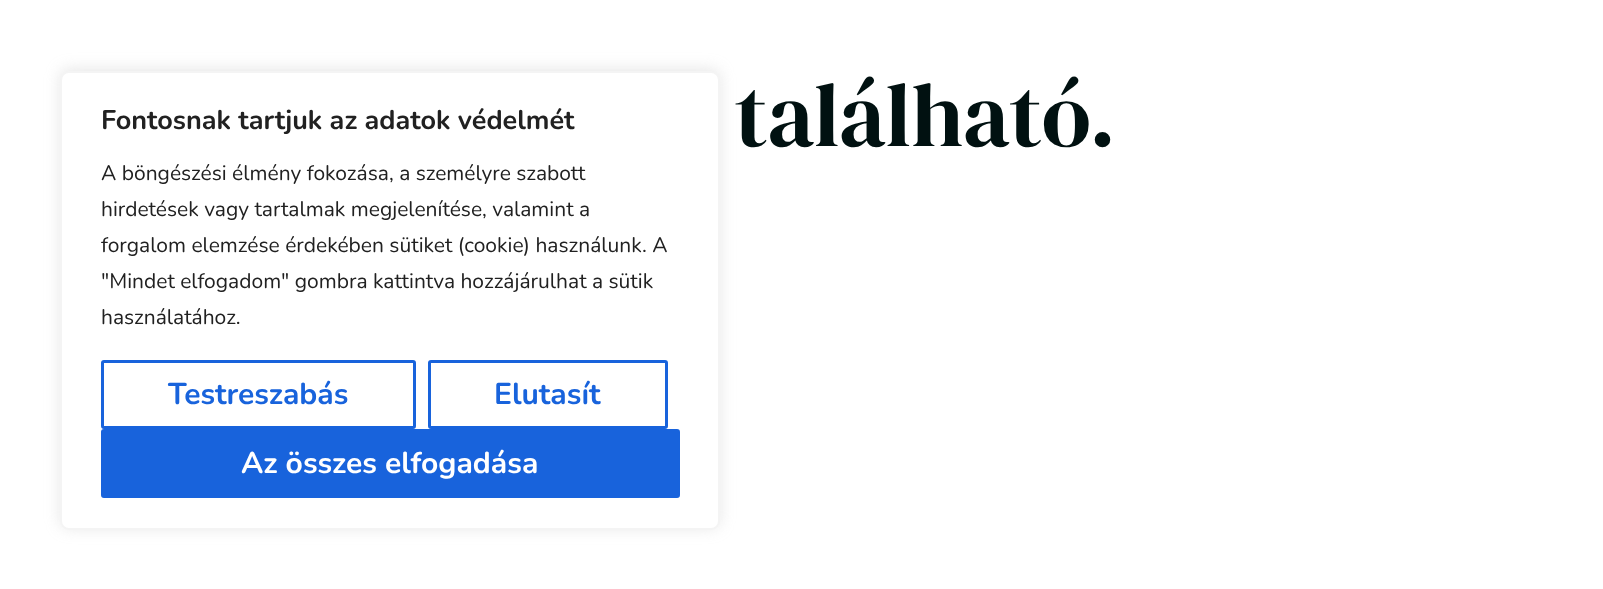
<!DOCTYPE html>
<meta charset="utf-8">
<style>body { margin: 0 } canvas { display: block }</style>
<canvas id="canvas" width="1603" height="589"></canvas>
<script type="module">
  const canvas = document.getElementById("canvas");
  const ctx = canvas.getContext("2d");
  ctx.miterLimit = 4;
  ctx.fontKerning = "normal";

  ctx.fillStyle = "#ffffff";
  ctx.fillRect(0, 0, 1603, 589);
  ctx.fillStyle = "rgba(172, 171, 171, 0.3)";
  ctx.filter = "blur(7.5px)";
  ctx.beginPath();
  ctx.roundRect(60, 69, 660, 459, 9);
  ctx.fill();
  ctx.filter = "none";
  ctx.fillStyle = "#ffffff";
  ctx.beginPath();
  ctx.roundRect(61, 72, 658, 457, 8);
  ctx.fill();
  ctx.strokeStyle = "#f4f4f4";
  ctx.lineWidth = 2;
  ctx.stroke();
  ctx.font = "bold 27px Nunito";
  ctx.fillStyle = "#212121";
  ctx.fillText("Fontosnak tartjuk az adatok védelmét", 101, 129);
  ctx.font = "21px Nunito";
  ctx.fillText("A böngészési élmény fokozása, a személyre szabott", 101, 180);
  ctx.fillText("hirdetések vagy tartalmak megjelenítése, valamint a", 101, 216);
  ctx.fillText("forgalom elemzése érdekében sütiket (cookie) használunk. A", 101, 252);
  ctx.fillText("\"Mindet elfogadom\" gombra kattintva hozzájárulhat a sütik", 101, 288);
  ctx.fillText("használatához.", 101, 324);
  ctx.beginPath();
  ctx.roundRect(102.5, 361.5, 312, 66, 1.5);
  ctx.strokeStyle = "#1863dc";
  ctx.lineWidth = 3;
  ctx.stroke();
  ctx.font = "bold 30px Nunito";
  ctx.fillStyle = "#1863dc";
  ctx.fillText("Testreszabás", 168, 404);
  ctx.beginPath();
  ctx.roundRect(429.5, 361.5, 237, 66, 1.5);
  ctx.stroke();
  ctx.fillText("Elutasít", 494, 404);
  ctx.beginPath();
  ctx.roundRect(102.5, 430.5, 576, 66, 1.5);
  ctx.fill();
  ctx.stroke();
  ctx.fillStyle = "#ffffff";
  ctx.fillText("Az összes elfogadása", 241, 473);
  ctx.font = "90px DM Serif Display";
  ctx.fillStyle = "#011111";
  ctx.fillText("található.", 735, 146);
</script>
